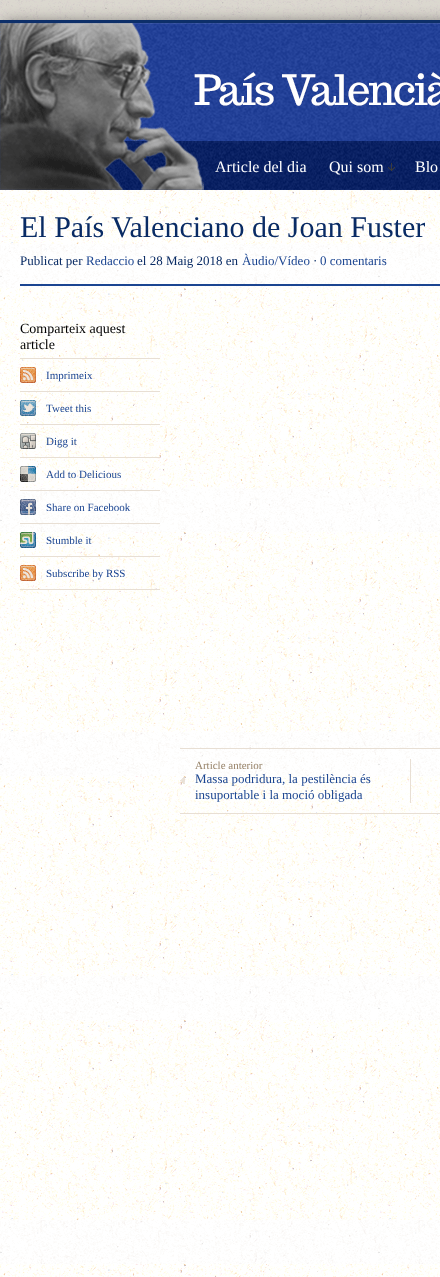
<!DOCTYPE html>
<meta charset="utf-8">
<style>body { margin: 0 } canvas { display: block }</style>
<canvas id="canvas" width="440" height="1277"></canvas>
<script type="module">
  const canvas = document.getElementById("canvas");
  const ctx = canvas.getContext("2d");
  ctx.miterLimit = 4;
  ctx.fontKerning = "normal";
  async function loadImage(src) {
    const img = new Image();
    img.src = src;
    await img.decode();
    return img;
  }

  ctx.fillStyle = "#ffffff";
  ctx.fillRect(0, 0, 440, 1277);
  ctx.drawImage(await loadImage("img1.png"), 0, 0, 440, 20);
  ctx.fillStyle = "rgba(0, 0, 0, 0.6)";
  ctx.filter = "blur(8px)";
  ctx.beginPath();
  ctx.rect(4, 24, 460, 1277);
  ctx.fill();
  ctx.filter = "none";
  ctx.drawImage(await loadImage("img2.png"), 0, 190, 440, 1087);
  ctx.fillStyle = "#0d2f69";
  ctx.fillRect(0, 20, 440, 3);
  ctx.drawImage(await loadImage("img3.png"), 0, 23, 440, 167);
  ctx.font = "16px Liberation Serif";
  ctx.fillStyle = "#ffffff";
  ctx.fillText("Article del dia", 215, 172);
  ctx.drawImage(await loadImage("img4.png"), 388, 163, 7, 8);
  ctx.fillText("Qui som", 329, 172);
  ctx.fillText("Blo", 415, 172);
  ctx.fillStyle = "#1b4591";
  ctx.fillRect(20, 284, 420, 2);
  ctx.font = "30px Liberation Serif";
  ctx.fillStyle = "#092b64";
  ctx.fillText("El País Valenciano de Joan Fuster", 20, 237);
  ctx.font = "13px Liberation Serif";
  ctx.fillText("Publicat per", 20, 265);
  ctx.fillStyle = "#1b4591";
  ctx.fillText("Redaccio", 86, 265);
  ctx.fillStyle = "#092b64";
  ctx.fillText("el 28 Maig 2018 en", 137, 265);
  ctx.fillStyle = "#1b4591";
  ctx.fillText("Àudio/Vídeo", 242, 265);
  ctx.fillStyle = "#092b64";
  ctx.fillText("·", 313, 265);
  ctx.fillStyle = "#1b4591";
  ctx.fillText("0 comentaris", 320, 265);
  ctx.fillStyle = "#e8dfd4";
  ctx.fillRect(20, 358, 140, 1);
  ctx.font = "14px Liberation Serif";
  ctx.fillStyle = "#000000";
  ctx.fillText("Comparteix aquest", 20, 333);
  ctx.fillText("article", 20, 349);
  ctx.fillStyle = "#e8dfd4";
  ctx.fillRect(20, 391, 140, 1);
  ctx.drawImage(await loadImage("img5.png"), 20, 367, 16, 16);
  ctx.font = "11px Liberation Serif";
  ctx.fillStyle = "#1b4591";
  ctx.fillText("Imprimeix", 46, 379);
  ctx.fillStyle = "#e8dfd4";
  ctx.fillRect(20, 424, 140, 1);
  ctx.drawImage(await loadImage("img6.png"), 20, 400, 16, 16);
  ctx.fillStyle = "#1b4591";
  ctx.fillText("Tweet this", 46, 412);
  ctx.fillStyle = "#e8dfd4";
  ctx.fillRect(20, 457, 140, 1);
  ctx.drawImage(await loadImage("img7.png"), 20, 433, 16, 16);
  ctx.fillStyle = "#1b4591";
  ctx.fillText("Digg it", 46, 445);
  ctx.fillStyle = "#e8dfd4";
  ctx.fillRect(20, 490, 140, 1);
  ctx.drawImage(await loadImage("img8.png"), 20, 466, 16, 16);
  ctx.fillStyle = "#1b4591";
  ctx.fillText("Add to Delicious", 46, 478);
  ctx.fillStyle = "#e8dfd4";
  ctx.fillRect(20, 523, 140, 1);
  ctx.drawImage(await loadImage("img9.png"), 20, 499, 16, 16);
  ctx.fillStyle = "#1b4591";
  ctx.fillText("Share on Facebook", 46, 511);
  ctx.fillStyle = "#e8dfd4";
  ctx.fillRect(20, 556, 140, 1);
  ctx.drawImage(await loadImage("img10.png"), 20, 532, 16, 16);
  ctx.fillStyle = "#1b4591";
  ctx.fillText("Stumble it", 46, 544);
  ctx.fillStyle = "#e8dfd4";
  ctx.fillRect(20, 589, 140, 1);
  ctx.drawImage(await loadImage("img11.png"), 20, 565, 16, 16);
  ctx.fillStyle = "#1b4591";
  ctx.fillText("Subscribe by RSS", 46, 577);
  ctx.fillStyle = "#e8dfd4";
  ctx.fillRect(180, 748, 260, 1);
  ctx.fillRect(180, 813, 260, 1);
  ctx.drawImage(await loadImage("img12.png"), 180, 777, 5, 7);
  ctx.fillStyle = "#968268";
  ctx.fillText("Article anterior", 195, 769);
  ctx.font = "13px Liberation Serif";
  ctx.fillStyle = "#1b4591";
  ctx.fillText("Massa podridura, la pestilència és", 195, 783);
  ctx.fillText("insuportable i la moció obligada", 195, 799);
  ctx.fillStyle = "#e8dfd4";
  ctx.fillRect(410, 759, 1, 44);
</script>
